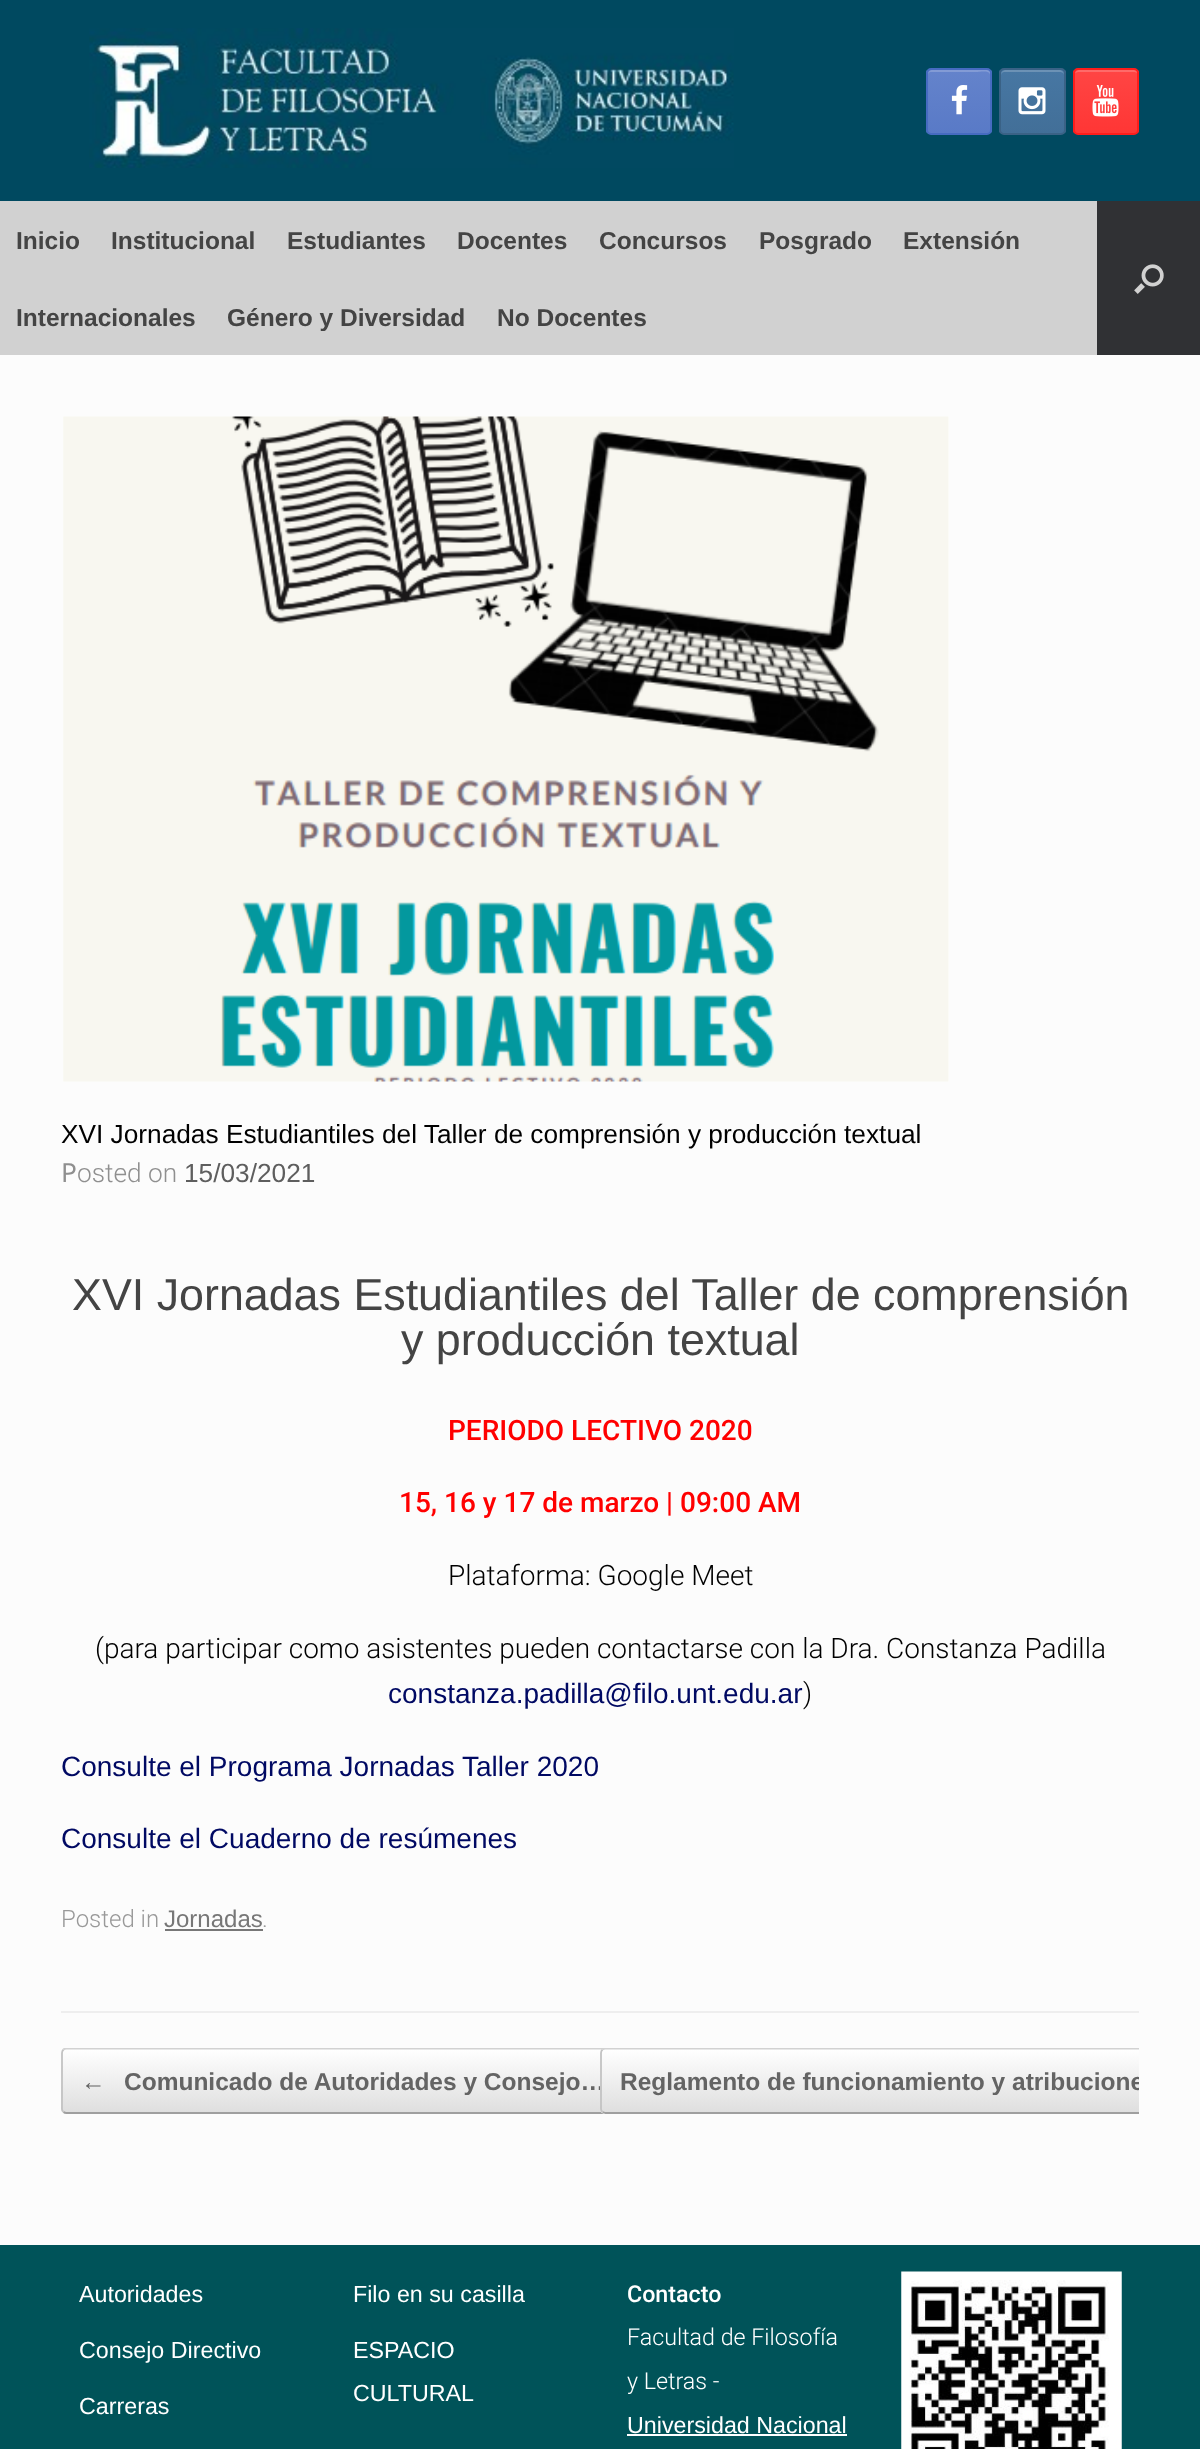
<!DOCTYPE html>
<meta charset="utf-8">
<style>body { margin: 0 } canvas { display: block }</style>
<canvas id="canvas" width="1200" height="2449"></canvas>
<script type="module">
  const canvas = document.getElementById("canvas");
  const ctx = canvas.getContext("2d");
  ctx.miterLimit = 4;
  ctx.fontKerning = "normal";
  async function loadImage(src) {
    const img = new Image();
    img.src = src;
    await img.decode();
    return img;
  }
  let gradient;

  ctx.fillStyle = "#005359";
  ctx.fillRect(0, 0, 1200, 2449);
  ctx.fillStyle = "#004960";
  ctx.fillRect(0, 0, 1200, 201);
  ctx.drawImage(await loadImage("img1.png"), 89, 28, 645, 140);
  ctx.save();
  ctx.beginPath();
  ctx.roundRect(926, 68, 66, 67, 5);
  ctx.clip();
  gradient = ctx.createLinearGradient(928, 133, 928, 70);
  gradient.addColorStop(0, "#597ac7");
  gradient.addColorStop(1, "#6483cb");
  ctx.fillStyle = gradient;
  ctx.fillRect(926, 70, 66, 63);
  ctx.restore();
  ctx.fillStyle = "rgba(255, 255, 255, 0.2)";
  ctx.beginPath();
  ctx.moveTo(931, 72);
  ctx.lineTo(978, 72);
  ctx.bezierCurveTo(979, 72, 990, 70, 990, 75);
  ctx.lineTo(990, 132);
  ctx.bezierCurveTo(991, 131, 991, 130, 991, 129);
  ctx.lineTo(991, 74);
  ctx.bezierCurveTo(991, 72, 989, 70, 987, 70);
  ctx.lineTo(932, 70);
  ctx.bezierCurveTo(930, 70, 928, 72, 928, 74);
  ctx.lineTo(928, 75);
  ctx.bezierCurveTo(928, 73, 929, 72, 931, 72);
  ctx.closePath();
  ctx.fill();
  ctx.beginPath();
  ctx.roundRect(927, 69, 64, 65, 4);
  ctx.strokeStyle = "#466bc1";
  ctx.lineWidth = 2;
  ctx.stroke();
  ctx.drawImage(await loadImage("img2.png"), 951, 85, 17, 30);
  ctx.save();
  ctx.beginPath();
  ctx.roundRect(999, 68, 67, 67, 5);
  ctx.clip();
  gradient = ctx.createLinearGradient(1001, 133, 1001, 70);
  gradient.addColorStop(0, "#426f98");
  gradient.addColorStop(1, "#4777a3");
  ctx.fillStyle = gradient;
  ctx.fillRect(999, 70, 67, 63);
  ctx.restore();
  ctx.fillStyle = "#6c92b5";
  ctx.beginPath();
  ctx.moveTo(1004, 72);
  ctx.lineTo(1060, 72);
  ctx.bezierCurveTo(1062, 72, 1064, 73, 1064, 75);
  ctx.bezierCurveTo(1064, 68, 1056, 70, 1051, 70);
  ctx.lineTo(1014, 70);
  ctx.bezierCurveTo(1009, 70, 1001, 68, 1001, 75);
  ctx.bezierCurveTo(1001, 73, 1003, 72, 1004, 72);
  ctx.closePath();
  ctx.fill();
  ctx.beginPath();
  ctx.roundRect(1000, 69, 65, 65, 4);
  ctx.strokeStyle = "#3a6286";
  ctx.stroke();
  ctx.drawImage(await loadImage("img3.png"), 1018, 87, 28, 28);
  ctx.save();
  ctx.beginPath();
  ctx.roundRect(1073, 68, 66, 67, 5);
  ctx.clip();
  gradient = ctx.createLinearGradient(1075, 133, 1075, 70);
  gradient.addColorStop(0, "#ff3635");
  gradient.addColorStop(1, "#ff4544");
  ctx.fillStyle = gradient;
  ctx.fillRect(1073, 70, 66, 63);
  ctx.restore();
  ctx.fillStyle = "#ff6a69";
  ctx.beginPath();
  ctx.moveTo(1078, 72);
  ctx.lineTo(1134, 72);
  ctx.bezierCurveTo(1136, 72, 1138, 73, 1138, 75);
  ctx.lineTo(1138, 74);
  ctx.bezierCurveTo(1138, 72, 1136, 70, 1134, 70);
  ctx.lineTo(1079, 70);
  ctx.bezierCurveTo(1077, 70, 1076, 71, 1075, 73);
  ctx.closePath();
  ctx.fill();
  ctx.beginPath();
  ctx.roundRect(1074, 69, 64, 65, 4);
  ctx.strokeStyle = "#ff1d1b";
  ctx.stroke();
  ctx.drawImage(await loadImage("img4.png"), 1092, 85, 27, 32);
  ctx.fillStyle = "#d1d1d1";
  ctx.fillRect(0, 201, 1097, 154);
  ctx.font = "bold 24.5px Liberation Sans";
  ctx.fillStyle = "#444444";
  ctx.fillText("Inicio", 16, 249);
  ctx.fillText("Institucional", 111, 249);
  ctx.fillText("Estudiantes", 287, 249);
  ctx.fillText("Docentes", 457, 249);
  ctx.fillText("Concursos", 599, 249);
  ctx.fillText("Posgrado", 759, 249);
  ctx.fillText("Extensión", 903, 249);
  ctx.fillText("Internacionales", 16, 326);
  ctx.fillText("Género y Diversidad", 227, 326);
  ctx.fillText("No Docentes", 497, 326);
  ctx.fillStyle = "#303134";
  ctx.fillRect(1097, 201, 103, 154);
  ctx.drawImage(await loadImage("img5.png"), 1134, 264, 30, 30);
  ctx.fillStyle = "#fcfcfc";
  ctx.fillRect(0, 355, 1200, 1890);
  ctx.fillStyle = "#eeeeee";
  ctx.fillRect(61, 2011, 1078, 2);
  ctx.drawImage(await loadImage("img6.png"), 63, 416, 886, 666);
  ctx.font = "26.25px Liberation Sans";
  ctx.fillStyle = "#000000";
  ctx.fillText("XVI Jornadas Estudiantiles del Taller de comprensión y producción textual", 61, 1143);
  ctx.font = "26.25px Noto Sans";
  ctx.fillStyle = "#8f8f8f";
  ctx.fillText("P", 61, 1182);
  ctx.font = "300 26.25px Roboto";
  ctx.fillText("osted on", 77, 1182);
  ctx.font = "26.25px Liberation Sans";
  ctx.fillStyle = "#5e5e5e";
  ctx.fillText("15/03/2021", 184, 1182);
  ctx.font = "44.8px Liberation Sans";
  ctx.fillStyle = "#444444";
  ctx.fillText("XVI Jornadas Estudiantiles del Taller de comprensión", 72, 1310);
  ctx.fillText("y producción textual", 401, 1355);
  ctx.font = "500 28px Roboto";
  ctx.fillStyle = "#ff0000";
  ctx.fillText("PERIODO LECTIVO 2020", 448, 1440);
  ctx.fillText("15, 16 y 17 de marzo | 09:00 AM", 399, 1512);
  ctx.font = "300 28px Roboto";
  ctx.fillStyle = "#000000";
  ctx.fillText("Plataforma: Google Meet", 448, 1585);
  ctx.fillText("(para participar como asistentes pueden contactarse con la Dra. Constanza Padilla", 95, 1658);
  ctx.font = "28px Liberation Sans";
  ctx.fillStyle = "#000963";
  ctx.fillText("constanza.padilla@filo.unt.edu.ar", 388, 1703);
  ctx.font = "300 28px Roboto";
  ctx.fillStyle = "#000000";
  ctx.fillText(")", 803, 1703);
  ctx.font = "28px Liberation Sans";
  ctx.fillStyle = "#000963";
  ctx.fillText("Consulte el Programa Jornadas Taller 2020", 61, 1776);
  ctx.fillText("Consulte el Cuaderno de resúmenes", 61, 1848);
  ctx.font = "300 24px Roboto";
  ctx.fillStyle = "#999999";
  ctx.fillText("Posted in", 61, 1927);
  ctx.font = "24px Liberation Sans";
  ctx.fillStyle = "#777777";
  ctx.fillText("Jornadas", 164, 1927);
  ctx.fillRect(165, 1929, 98, 2);
  ctx.font = "300 24px Roboto";
  ctx.fillStyle = "#999999";
  ctx.fillText(".", 262, 1927);
  ctx.save();
  ctx.beginPath();
  ctx.roundRect(61, 2048, 564, 66, 5);
  ctx.clip();
  gradient = ctx.createLinearGradient(63, 2112, 63, 2049);
  gradient.addColorStop(0, "#dfdfdf");
  gradient.addColorStop(1, "#ffffff");
  ctx.fillStyle = gradient;
  ctx.fillRect(61, 2049, 541, 63);
  gradient = ctx.createLinearGradient(63, 2175, 63, 2112);
  gradient.addColorStop(0, "#dfdfdf");
  gradient.addColorStop(1, "#ffffff");
  ctx.fillStyle = gradient;
  ctx.fillRect(61, 2112, 544, 2);
  ctx.restore();
  ctx.save();
  ctx.beginPath();
  ctx.rect(61, 2048, 1078, 66);
  ctx.clip();
  ctx.beginPath();
  ctx.moveTo(63.5, 2049.5);
  ctx.bezierCurveTo(64, 2049, 65.5, 2048.5, 66.5, 2048.5);
  ctx.lineTo(619.5, 2048.5);
  ctx.bezierCurveTo(620.5, 2048.5, 622, 2049, 622.5, 2049.5);
  ctx.strokeStyle = "#d2d2d2";
  ctx.lineWidth = 1.8;
  ctx.stroke();
  ctx.restore();
  ctx.beginPath();
  ctx.moveTo(622.5, 2112);
  ctx.bezierCurveTo(622, 2112.5, 620.5, 2113, 619.5, 2113);
  ctx.lineTo(66.5, 2113);
  ctx.bezierCurveTo(65.5, 2113, 64, 2112.5, 63.5, 2112);
  ctx.strokeStyle = "#9f9f9f";
  ctx.lineWidth = 1.8;
  ctx.stroke();
  ctx.beginPath();
  ctx.moveTo(63.5, 2112);
  ctx.bezierCurveTo(62.5, 2111, 62, 2110, 62, 2109);
  ctx.lineTo(62, 2053);
  ctx.bezierCurveTo(62, 2051.5, 62.5, 2050.5, 63.5, 2049.5);
  ctx.strokeStyle = "#c3c3c3";
  ctx.stroke();
  ctx.font = "bold 24.5px Liberation Sans";
  ctx.fillStyle = "#646464";
  ctx.fillText("←", 81, 2090);
  ctx.fillText("Comunicado de Autoridades y Consejo…", 124, 2090);
  ctx.save();
  ctx.beginPath();
  ctx.roundRect(600, 2048, 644, 66, 5);
  ctx.clip();
  gradient = ctx.createLinearGradient(602, 2112, 602, 2049);
  gradient.addColorStop(0, "#dfdfdf");
  gradient.addColorStop(1, "#ffffff");
  ctx.fillStyle = gradient;
  ctx.fillRect(600, 2049, 539, 63);
  gradient = ctx.createLinearGradient(602, 2175, 602, 2112);
  gradient.addColorStop(0, "#dfdfdf");
  gradient.addColorStop(1, "#ffffff");
  ctx.fillStyle = gradient;
  ctx.fillRect(600, 2112, 539, 2);
  ctx.restore();
  ctx.save();
  ctx.beginPath();
  ctx.rect(61, 2048, 1078, 66);
  ctx.clip();
  ctx.beginPath();
  ctx.moveTo(602.5, 2049.5);
  ctx.lineTo(605.5, 2048.5);
  ctx.lineTo(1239, 2048.5);
  ctx.lineTo(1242, 2049.5);
  ctx.strokeStyle = "#d2d2d2";
  ctx.stroke();
  ctx.beginPath();
  ctx.moveTo(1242, 2112);
  ctx.lineTo(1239, 2113);
  ctx.lineTo(605.5, 2113);
  ctx.lineTo(602.5, 2112);
  ctx.strokeStyle = "#9f9f9f";
  ctx.stroke();
  ctx.restore();
  ctx.beginPath();
  ctx.moveTo(602.5, 2112);
  ctx.bezierCurveTo(601.5, 2111, 601, 2110, 601, 2109);
  ctx.lineTo(601, 2053);
  ctx.bezierCurveTo(601, 2051.5, 601.5, 2050.5, 602.5, 2049.5);
  ctx.stroke();
  ctx.save();
  ctx.beginPath();
  ctx.rect(61, 2048, 1078, 66);
  ctx.clip();
  ctx.fillText("Reglamento de funcionamiento y atribucione", 620, 2090);
  ctx.restore();
  ctx.font = "23.25px Liberation Sans";
  ctx.fillStyle = "#ffffff";
  ctx.fillText("Autoridades", 79, 2302);
  ctx.fillText("Consejo Directivo", 79, 2358);
  ctx.fillText("Carreras", 79, 2414);
  ctx.fillText("Filo en su casilla", 353, 2302);
  ctx.fillText("ESPACIO", 353, 2358);
  ctx.fillText("CULTURAL", 353, 2401);
  ctx.font = "500 23.25px Roboto";
  ctx.fillText("Contacto", 627, 2302);
  ctx.font = "300 23.25px Roboto";
  ctx.fillText("Facultad de Filosofía", 627, 2345);
  ctx.fillText("y Letras -", 627, 2389);
  ctx.font = "23.25px Liberation Sans";
  ctx.fillText("Universidad Nacional", 627, 2433);
  ctx.fillRect(627, 2434, 220, 2);
  ctx.drawImage(await loadImage("img7.png"), 901, 2271, 221, 178);
</script>
